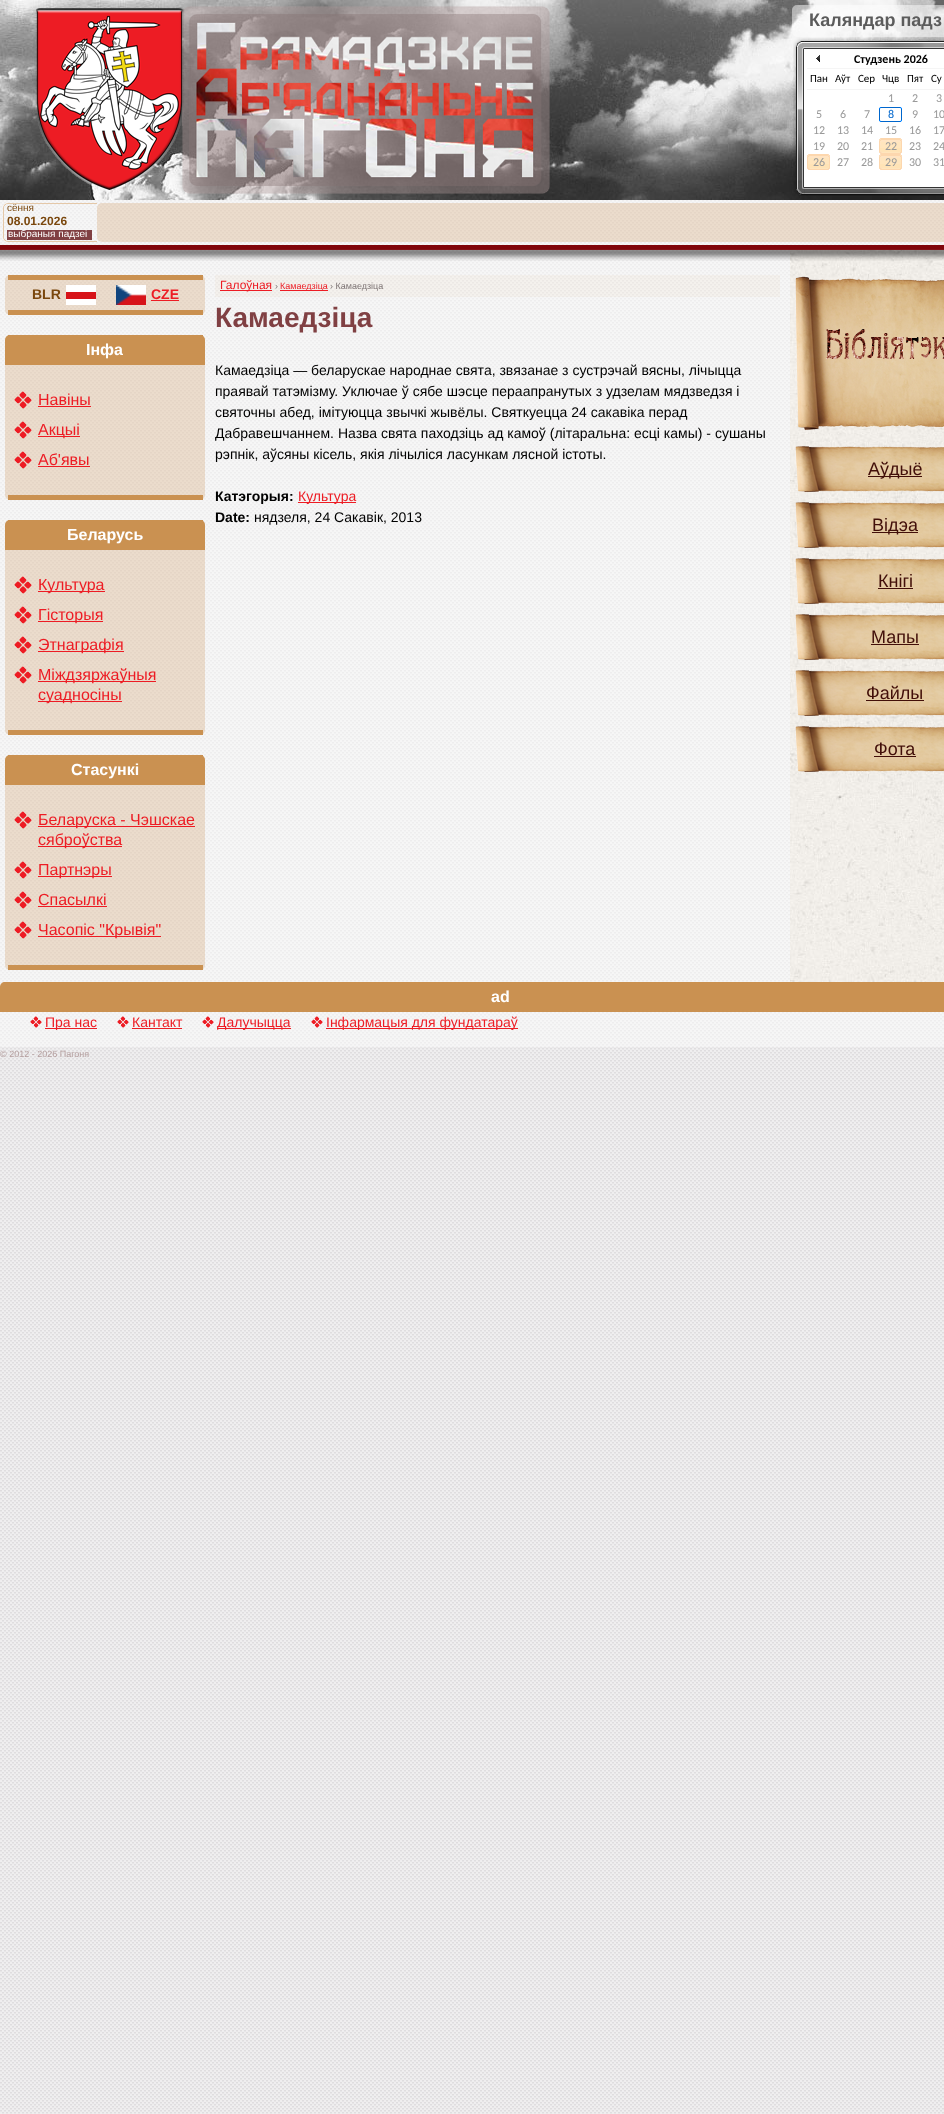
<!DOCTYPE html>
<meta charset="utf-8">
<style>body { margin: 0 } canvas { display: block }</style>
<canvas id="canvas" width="944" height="2114"></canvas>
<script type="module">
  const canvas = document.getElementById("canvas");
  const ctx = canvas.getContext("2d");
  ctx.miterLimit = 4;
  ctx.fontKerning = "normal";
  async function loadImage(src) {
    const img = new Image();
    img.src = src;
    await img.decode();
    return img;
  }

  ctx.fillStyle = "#ffffff";
  ctx.fillRect(0, 0, 944, 2114);
  ctx.drawImage(await loadImage("img1.png"), 0, 200, 944, 1914);
  ctx.fillStyle = "rgba(253, 253, 253, 0.5)";
  ctx.fillRect(0, 200, 944, 847);
  ctx.drawImage(await loadImage("img2.png"), 0, 0, 944, 200);
  ctx.drawImage(await loadImage("img3.png"), 35, 6, 515, 188);
  ctx.drawImage(await loadImage("img4.png"), 792, 5, 152, 32);
  ctx.font = "bold 18px Liberation Sans";
  ctx.fillStyle = "#5c5c5c";
  ctx.fillText("Каляндар падз", 809, 26);
  ctx.drawImage(await loadImage("img5.png"), 793, 38, 151, 158);
  ctx.drawImage(await loadImage("img6.png"), 816, 55, 4, 7);
  ctx.font = "bold 12px Carlito";
  ctx.fillStyle = "#000000";
  ctx.fillText("Студзень 2026", 854, 63);
  ctx.fillStyle = "#f5f5f5";
  ctx.fillRect(807, 68, 137, 1);
  ctx.fillRect(807, 89, 137, 1);
  ctx.font = "11px Carlito";
  ctx.fillStyle = "#000000";
  ctx.fillText("Пан", 810, 82);
  ctx.fillText("Аўт", 835, 82);
  ctx.fillText("Сер", 858, 82);
  ctx.fillText("Чцв", 882, 82);
  ctx.fillText("Пят", 907, 82);
  ctx.fillText("Су", 931, 82);
  ctx.font = "12px Carlito";
  ctx.fillStyle = "#999999";
  ctx.fillText("1", 888, 102);
  ctx.fillText("2", 912, 102);
  ctx.fillText("3", 936, 102);
  ctx.fillText("5", 816, 118);
  ctx.fillText("6", 840, 118);
  ctx.fillText("7", 864, 118);
  ctx.drawImage(await loadImage("img7.png"), 879, 107, 23, 15);
  ctx.fillStyle = "#0066cc";
  ctx.fillText("8", 888, 118);
  ctx.fillStyle = "#999999";
  ctx.fillText("9", 912, 118);
  ctx.fillText("10", 933, 118);
  ctx.fillText("12", 813, 134);
  ctx.fillText("13", 837, 134);
  ctx.fillText("14", 861, 134);
  ctx.fillText("15", 885, 134);
  ctx.fillText("16", 909, 134);
  ctx.fillText("17", 933, 134);
  ctx.fillText("19", 813, 150);
  ctx.fillText("20", 837, 150);
  ctx.fillText("21", 861, 150);
  ctx.drawImage(await loadImage("img8.png"), 879, 138, 23, 2);
  ctx.drawImage(await loadImage("img9.png"), 879, 139, 23, 15);
  ctx.fillText("22", 885, 150);
  ctx.fillText("23", 909, 150);
  ctx.fillText("24", 933, 150);
  ctx.drawImage(await loadImage("img8.png"), 807, 154, 23, 2);
  ctx.drawImage(await loadImage("img9.png"), 807, 155, 23, 15);
  ctx.fillText("26", 813, 166);
  ctx.fillText("27", 837, 166);
  ctx.fillText("28", 861, 166);
  ctx.drawImage(await loadImage("img8.png"), 879, 154, 23, 2);
  ctx.drawImage(await loadImage("img9.png"), 879, 155, 23, 15);
  ctx.fillText("29", 885, 166);
  ctx.fillText("30", 909, 166);
  ctx.fillText("31", 933, 166);
  ctx.drawImage(await loadImage("img13.png"), 790, 250, 154, 732);
  ctx.drawImage(await loadImage("img10.png"), 0, 245, 944, 16);
  ctx.drawImage(await loadImage("img11.png"), 3, 203, 94, 39);
  ctx.font = "10px Liberation Sans";
  ctx.fillStyle = "#7a470d";
  ctx.fillText("cёння", 7, 211);
  ctx.font = "bold 12px Liberation Sans";
  ctx.fillText("08.01.2026", 7, 225);
  ctx.fillStyle = "#804043";
  ctx.fillRect(7, 230, 85, 10);
  ctx.font = "10px Liberation Sans";
  ctx.fillStyle = "#ffffff";
  ctx.fillText("выбраныя падзеі", 8, 237);
  ctx.drawImage(await loadImage("img12.png"), 97, 203, 847, 39);
  ctx.drawImage(await loadImage("img14.png"), 5, 275, 200, 40);
  ctx.fillStyle = "#ca9151";
  ctx.fillRect(8, 275, 195, 5);
  ctx.fillRect(8, 310, 195, 5);
  ctx.font = "bold 14px Liberation Sans";
  ctx.fillStyle = "#7a470d";
  ctx.fillText("BLR", 32, 299);
  ctx.drawImage(await loadImage("img15.png"), 66, 285, 30, 20);
  ctx.drawImage(await loadImage("img16.png"), 116, 285, 30, 20);
  ctx.fillStyle = "#ed1c24";
  ctx.fillText("CZE", 151, 299);
  ctx.fillRect(151, 300, 28, 1);
  ctx.drawImage(await loadImage("img17.png"), 5, 335, 200, 165);
  ctx.fillStyle = "#ca9151";
  ctx.fillRect(8, 335, 195, 1);
  ctx.fillRect(8, 495, 195, 5);
  ctx.beginPath();
  ctx.roundRect(5, 335, 200, 30, [5, 5, 0, 0]);
  ctx.fill();
  ctx.font = "bold 16px Liberation Sans";
  ctx.fillStyle = "#ffffff";
  ctx.fillText("Інфа", 86, 355);
  ctx.drawImage(await loadImage("img18.png"), 14, 391, 18, 18);
  ctx.font = "16px Liberation Sans";
  ctx.fillStyle = "#ed1c24";
  ctx.fillText("Навіны", 38, 405);
  ctx.fillRect(38, 406, 53, 1);
  ctx.drawImage(await loadImage("img19.png"), 14, 421, 18, 18);
  ctx.fillRect(38, 436, 42, 1);
  ctx.fillText("Акцыі", 38, 435);
  ctx.drawImage(await loadImage("img20.png"), 14, 451, 18, 18);
  ctx.fillText("Аб'явы", 38, 465);
  ctx.fillRect(38, 466, 52, 1);
  ctx.drawImage(await loadImage("img21.png"), 5, 520, 200, 215);
  ctx.fillStyle = "#ca9151";
  ctx.fillRect(8, 520, 195, 1);
  ctx.fillRect(8, 730, 195, 5);
  ctx.beginPath();
  ctx.roundRect(5, 520, 200, 30, [5, 5, 0, 0]);
  ctx.fill();
  ctx.font = "bold 16px Liberation Sans";
  ctx.fillStyle = "#ffffff";
  ctx.fillText("Беларусь", 67, 540);
  ctx.drawImage(await loadImage("img22.png"), 14, 576, 18, 18);
  ctx.fillStyle = "#ed1c24";
  ctx.fillRect(38, 591, 67, 1);
  ctx.font = "16px Liberation Sans";
  ctx.fillText("Культура", 38, 590);
  ctx.drawImage(await loadImage("img23.png"), 14, 606, 18, 18);
  ctx.fillRect(38, 621, 65, 1);
  ctx.fillText("Гісторыя", 38, 620);
  ctx.drawImage(await loadImage("img24.png"), 14, 636, 18, 18);
  ctx.fillRect(38, 651, 86, 1);
  ctx.fillText("Этнаграфія", 38, 650);
  ctx.drawImage(await loadImage("img25.png"), 14, 666, 18, 18);
  ctx.fillRect(38, 681, 118, 1);
  ctx.fillText("Міждзяржаўныя", 38, 680);
  ctx.fillRect(38, 701, 84, 1);
  ctx.fillText("суадносіны", 38, 700);
  ctx.drawImage(await loadImage("img26.png"), 5, 755, 200, 215);
  ctx.fillStyle = "#ca9151";
  ctx.fillRect(8, 755, 195, 1);
  ctx.fillRect(8, 965, 195, 5);
  ctx.beginPath();
  ctx.roundRect(5, 755, 200, 30, [5, 5, 0, 0]);
  ctx.fill();
  ctx.font = "bold 16px Liberation Sans";
  ctx.fillStyle = "#ffffff";
  ctx.fillText("Стасункі", 71, 775);
  ctx.drawImage(await loadImage("img20.png"), 14, 811, 18, 18);
  ctx.fillStyle = "#ed1c24";
  ctx.fillRect(38, 826, 157, 1);
  ctx.font = "16px Liberation Sans";
  ctx.fillText("Беларуска - Чэшскае", 38, 825);
  ctx.fillRect(38, 846, 84, 1);
  ctx.fillText("сяброўства", 38, 845);
  ctx.drawImage(await loadImage("img19.png"), 14, 861, 18, 18);
  ctx.fillRect(38, 876, 74, 1);
  ctx.fillText("Партнэры", 38, 875);
  ctx.drawImage(await loadImage("img20.png"), 14, 891, 18, 18);
  ctx.fillText("Спасылкі", 38, 905);
  ctx.fillRect(38, 906, 69, 1);
  ctx.drawImage(await loadImage("img27.png"), 14, 921, 18, 18);
  ctx.fillRect(38, 936, 123, 1);
  ctx.fillText("Часопіс \"Крывія\"", 38, 935);
  ctx.fillStyle = "rgba(226, 196, 157, 0.1)";
  ctx.fillRect(215, 275, 565, 22);
  ctx.fillStyle = "#ed1c24";
  ctx.fillRect(220, 290, 52, 1);
  ctx.font = "12px Liberation Sans";
  ctx.fillText("Галоўная", 220, 289);
  ctx.font = "9px Liberation Sans";
  ctx.fillStyle = "#7e7575";
  ctx.fillText("›", 275, 289);
  ctx.fillStyle = "#ed1c24";
  ctx.fillRect(280, 290, 48, 1);
  ctx.fillText("Камаедзіца", 280, 289);
  ctx.fillStyle = "#7e7575";
  ctx.fillText("› Камаедзіца", 330, 289);
  ctx.font = "bold 28px Liberation Sans";
  ctx.fillStyle = "#804043";
  ctx.fillText("Камаедзіца", 215, 327);
  ctx.font = "14px Liberation Sans";
  ctx.fillStyle = "#000000";
  ctx.fillText("Камаедзіца — беларускае народнае свята, звязанае з сустрэчай вясны, лічыцца", 215, 375);
  ctx.fillText("праявай татэмізму. Уключае ў сябе шэсце пераапранутых з удзелам мядзведзя і", 215, 396);
  ctx.fillText("святочны абед, імітуюцца звычкі жывёлы. Святкуецца 24 сакавіка перад", 215, 417);
  ctx.fillText("Дабравешчаннем. Назва свята паходзіць ад камоў (літаральна: есці камы) - сушаны", 215, 438);
  ctx.fillText("рэпнік, аўсяны кісель, якія лічыліся ласункам лясной істоты.", 215, 459);
  ctx.font = "bold 14px Liberation Sans";
  ctx.fillText("Катэгорыя:", 215, 501);
  ctx.fillStyle = "#ed1c24";
  ctx.fillRect(298, 502, 58, 1);
  ctx.font = "14px Liberation Sans";
  ctx.fillText("Культура", 298, 501);
  ctx.font = "bold 14px Liberation Sans";
  ctx.fillStyle = "#000000";
  ctx.fillText("Date:", 215, 522);
  ctx.font = "14px Liberation Sans";
  ctx.fillText("нядзеля, 24 Сакавік, 2013", 254, 522);
  ctx.drawImage(await loadImage("img28.png"), 795, 276, 149, 155);
  ctx.drawImage(await loadImage("img29.png"), 795, 446, 149, 46);
  ctx.fillStyle = "#420f09";
  ctx.fillRect(868, 476, 54, 1);
  ctx.font = "18px Liberation Sans";
  ctx.fillText("Аўдыё", 868, 475);
  ctx.drawImage(await loadImage("img30.png"), 795, 502, 149, 46);
  ctx.fillRect(872, 532, 46, 1);
  ctx.fillText("Відэа", 872, 531);
  ctx.drawImage(await loadImage("img31.png"), 795, 558, 149, 46);
  ctx.fillText("Кнігі", 878, 587);
  ctx.fillRect(878, 588, 35, 1);
  ctx.drawImage(await loadImage("img32.png"), 795, 614, 149, 46);
  ctx.fillText("Мапы", 871, 643);
  ctx.fillRect(871, 644, 48, 1);
  ctx.drawImage(await loadImage("img33.png"), 795, 670, 149, 46);
  ctx.fillText("Файлы", 866, 699);
  ctx.fillRect(866, 700, 58, 1);
  ctx.drawImage(await loadImage("img34.png"), 795, 726, 149, 46);
  ctx.fillText("Фота", 874, 755);
  ctx.fillRect(874, 756, 42, 1);
  ctx.fillStyle = "#ca9151";
  ctx.beginPath();
  ctx.moveTo(5, 982);
  ctx.lineTo(944, 982);
  ctx.bezierCurveTo(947, 982, 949, 984, 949, 987);
  ctx.lineTo(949, 1012);
  ctx.lineTo(0, 1012);
  ctx.lineTo(0, 987);
  ctx.bezierCurveTo(0, 984, 2, 982, 5, 982);
  ctx.closePath();
  ctx.fill();
  ctx.font = "bold 16px Liberation Sans";
  ctx.fillStyle = "#ffffff";
  ctx.fillText("ad", 491, 1002);
  ctx.drawImage(await loadImage("img35.png"), 30, 1016, 12, 12);
  ctx.fillStyle = "#ed1c24";
  ctx.fillRect(45, 1028, 52, 1);
  ctx.font = "14px Liberation Sans";
  ctx.fillText("Пра нас", 45, 1027);
  ctx.drawImage(await loadImage("img36.png"), 117, 1016, 12, 12);
  ctx.fillText("Кантакт", 132, 1027);
  ctx.fillRect(132, 1028, 50, 1);
  ctx.drawImage(await loadImage("img37.png"), 202, 1016, 12, 12);
  ctx.fillRect(217, 1028, 74, 1);
  ctx.fillText("Далучыцца", 217, 1027);
  ctx.drawImage(await loadImage("img38.png"), 311, 1016, 12, 12);
  ctx.fillRect(326, 1028, 192, 1);
  ctx.fillText("Інфармацыя для фундатараў", 326, 1027);
  ctx.font = "9px Liberation Sans";
  ctx.fillStyle = "#b39d9d";
  ctx.fillText("© 2012 - 2026 Пагоня", 0, 1057);
</script>
